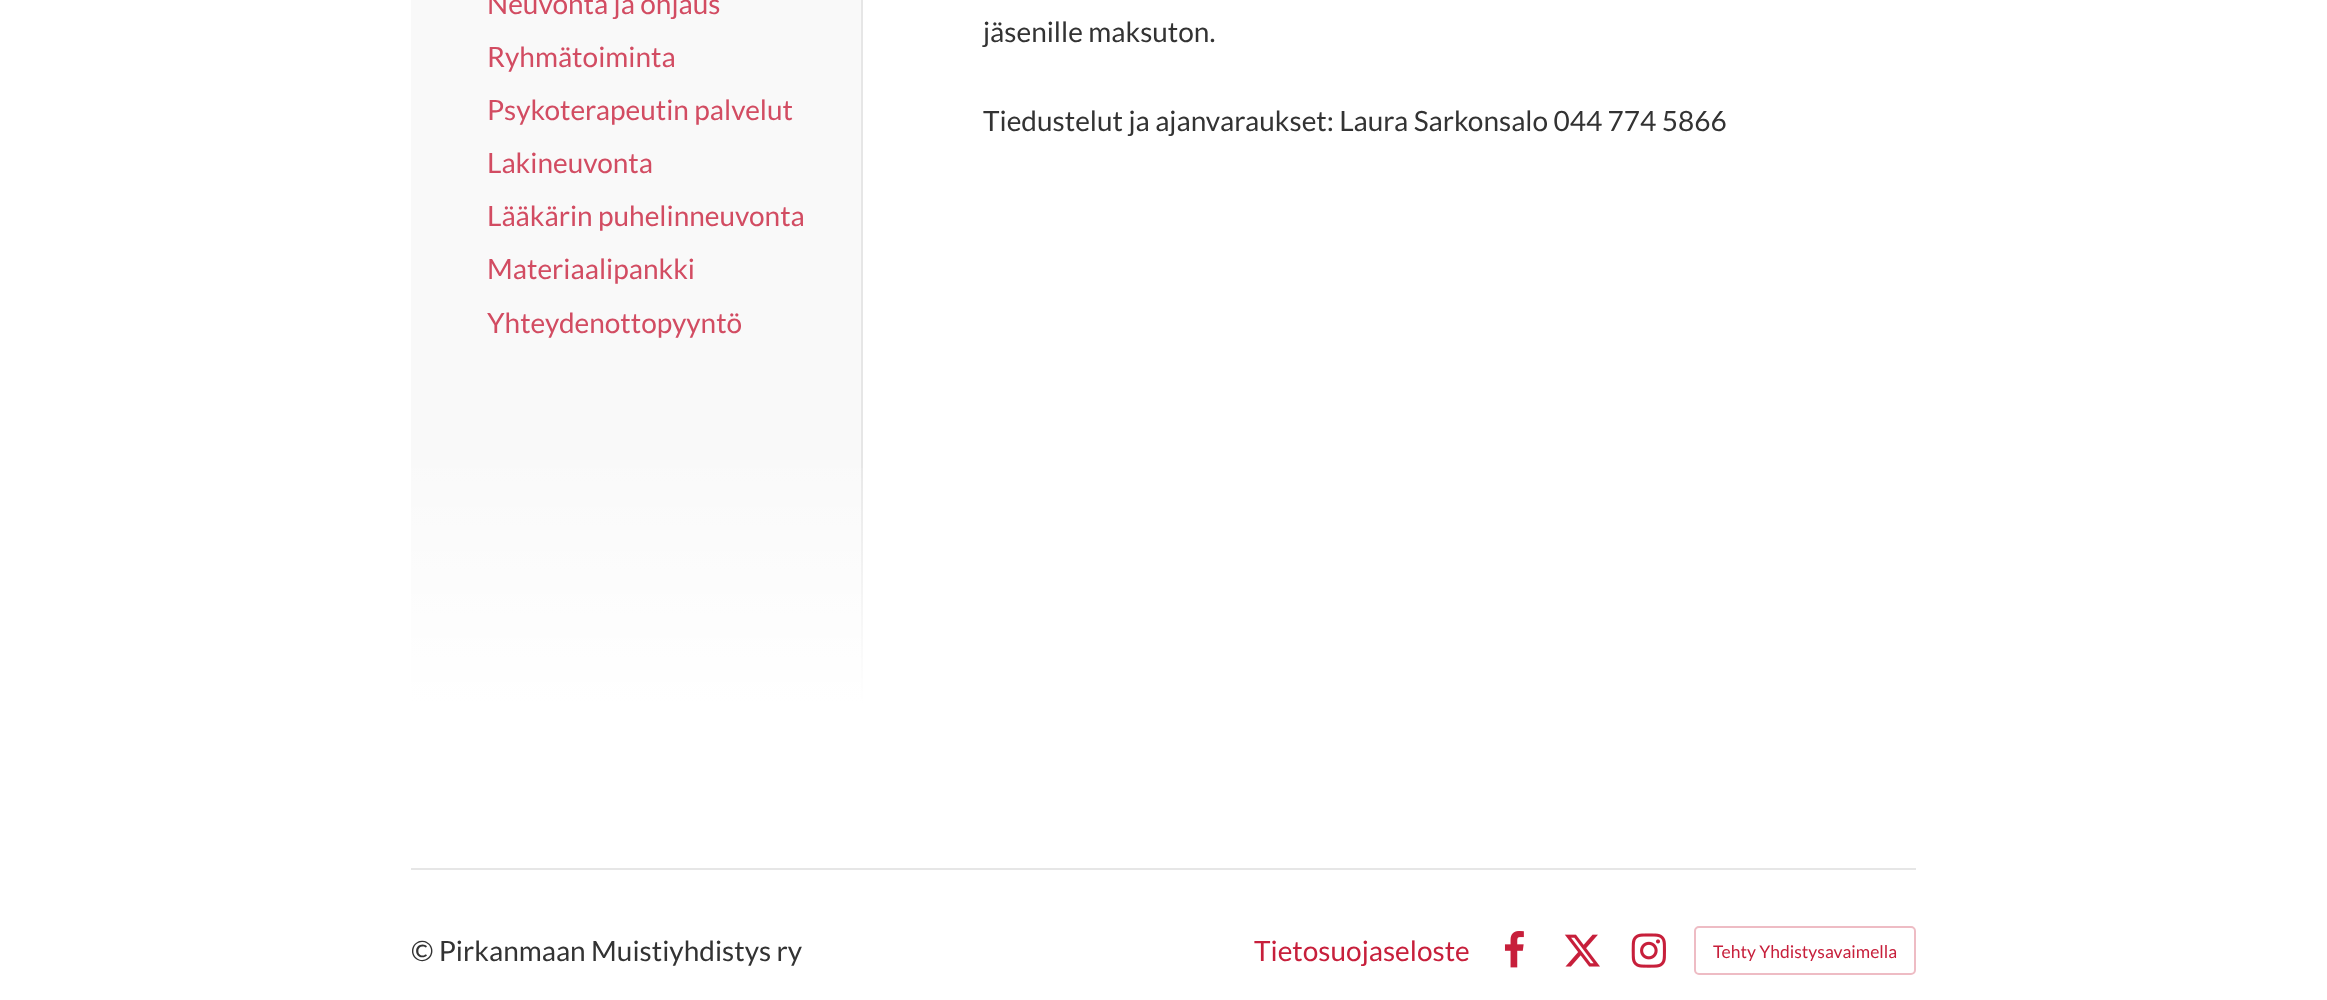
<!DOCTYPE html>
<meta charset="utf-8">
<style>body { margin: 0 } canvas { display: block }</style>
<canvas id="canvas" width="2327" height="1000"></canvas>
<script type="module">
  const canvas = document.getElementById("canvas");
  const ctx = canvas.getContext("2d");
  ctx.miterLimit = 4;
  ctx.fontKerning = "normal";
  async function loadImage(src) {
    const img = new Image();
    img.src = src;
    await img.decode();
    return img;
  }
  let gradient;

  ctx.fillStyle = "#ffffff";
  ctx.fillRect(0, 0, 2327, 1000);
  ctx.fillStyle = "#f9f9f9";
  ctx.fillRect(411, 0, 450, 702);
  ctx.fillStyle = "#e6e6e6";
  ctx.fillRect(861, 0, 2, 704);
  ctx.font = "28px Lato";
  ctx.fillStyle = "#d24c62";
  ctx.fillText("Neuvonta ja ohjaus", 487, 14);
  ctx.fillText("Ryhmätoiminta", 487, 67);
  ctx.fillText("Psykoterapeutin palvelut", 487, 120);
  ctx.fillText("Lakineuvonta", 487, 173);
  ctx.fillText("Lääkärin puhelinneuvonta", 487, 226);
  ctx.fillText("Materiaalipankki", 487, 279);
  ctx.fillText("Yhteydenottopyyntö", 487, 333);
  gradient = ctx.createLinearGradient(637, 441, 637, 704);
  gradient.addColorStop(0, "rgba(255, 255, 255, 0)");
  gradient.addColorStop(1, "#ffffff");
  ctx.fillStyle = gradient;
  ctx.fillRect(411, 468, 452, 236);
  ctx.fillStyle = "#333333";
  ctx.fillText("jäsenille maksuton.", 983, 42);
  ctx.fillText("Tiedustelut ja ajanvaraukset: Laura Sarkonsalo 044 774 5866", 983, 131);
  ctx.fillStyle = "#e6e6e6";
  ctx.fillRect(411, 868, 1505, 2);
  ctx.fillStyle = "#333333";
  ctx.fillText("© Pirkanmaan Muistiyhdistys ry", 411, 961);
  ctx.fillStyle = "#c71f3b";
  ctx.fillText("Tietosuojaseloste", 1254, 961);
  ctx.drawImage(await loadImage("img1.png"), 1504, 931, 20, 37);
  ctx.drawImage(await loadImage("img2.png"), 1564, 934, 36, 33);
  ctx.drawImage(await loadImage("img3.png"), 1631, 933, 35, 35);
  ctx.beginPath();
  ctx.roundRect(1695, 927, 220, 47, 4);
  ctx.strokeStyle = "#eebcc4";
  ctx.lineWidth = 2;
  ctx.stroke();
  ctx.font = "17.5px Lato";
  ctx.fillText("Tehty Yhdistysavaimella", 1713, 958);
</script>
